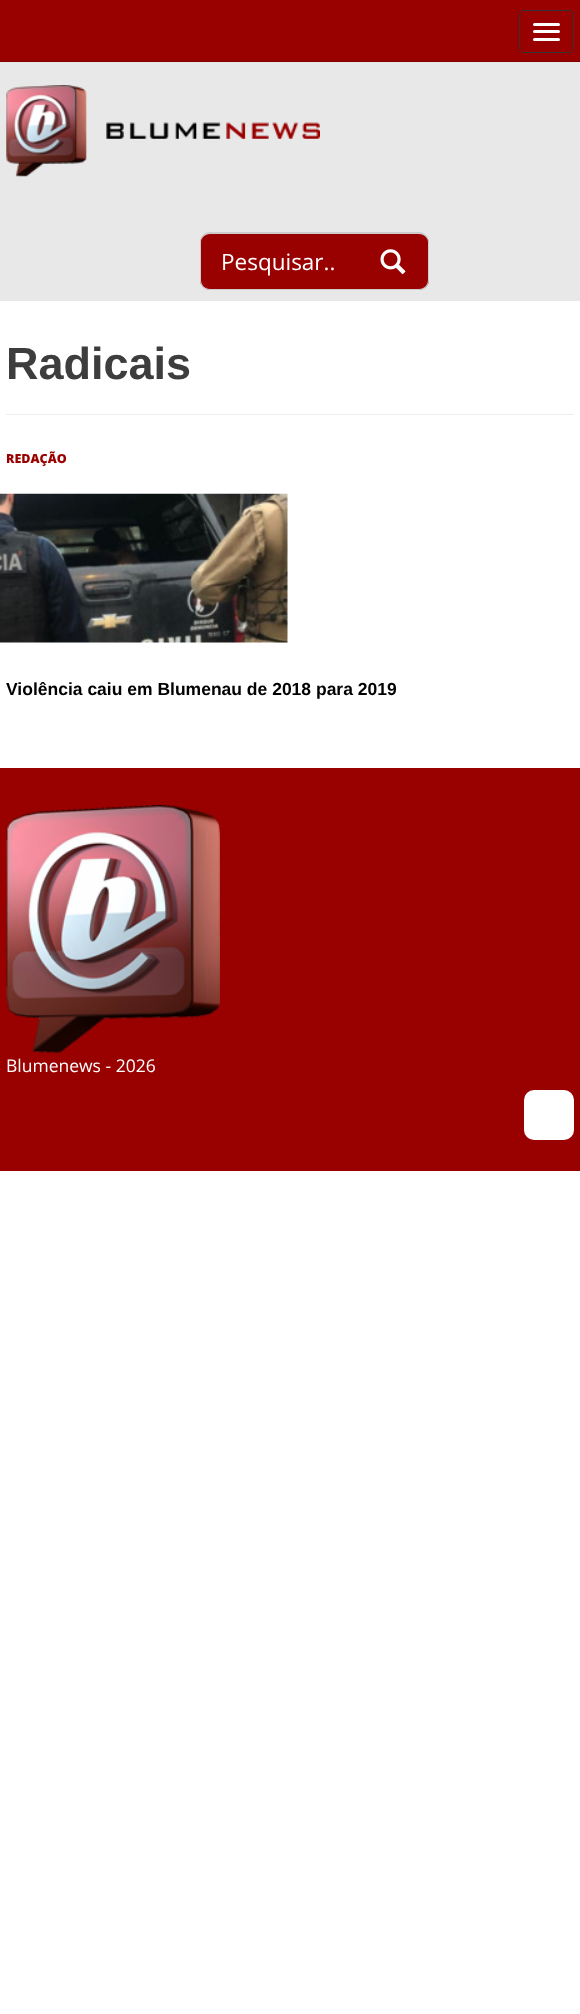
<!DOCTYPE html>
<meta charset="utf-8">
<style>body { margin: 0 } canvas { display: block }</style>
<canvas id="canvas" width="580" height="2014"></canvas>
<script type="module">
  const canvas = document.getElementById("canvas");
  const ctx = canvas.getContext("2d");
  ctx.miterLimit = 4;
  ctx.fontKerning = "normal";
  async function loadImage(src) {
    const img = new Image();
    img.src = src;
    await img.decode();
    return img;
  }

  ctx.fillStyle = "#ffffff";
  ctx.fillRect(0, 0, 580, 2014);
  ctx.fillStyle = "#990000";
  ctx.fillRect(0, 0, 580, 61);
  ctx.fillStyle = "#800000";
  ctx.fillRect(0, 61, 580, 1);
  ctx.beginPath();
  ctx.roundRect(519.5, 10.5, 54, 42, 4.5);
  ctx.strokeStyle = "#333333";
  ctx.stroke();
  ctx.fillStyle = "#ffffff";
  ctx.beginPath();
  ctx.roundRect(533, 23, 27, 3, 1.5);
  ctx.fill();
  ctx.beginPath();
  ctx.roundRect(533, 30, 27, 3, 1.5);
  ctx.fill();
  ctx.beginPath();
  ctx.roundRect(533, 38, 27, 3, 1.5);
  ctx.fill();
  ctx.fillStyle = "#e8e8e8";
  ctx.fillRect(0, 62, 580, 239);
  ctx.drawImage(await loadImage("img1.png"), 6, 85, 314, 92);
  ctx.fillStyle = "#990000";
  ctx.beginPath();
  ctx.roundRect(200, 233, 158, 57, [10, 0, 0, 10]);
  ctx.fill();
  ctx.fillStyle = "#cccccc";
  ctx.beginPath();
  ctx.moveTo(210, 232);
  ctx.lineTo(358, 232);
  ctx.lineTo(358, 290);
  ctx.lineTo(210, 290);
  ctx.bezierCurveTo(204, 290, 200, 286, 200, 280);
  ctx.lineTo(200, 242);
  ctx.bezierCurveTo(200, 237, 204, 232, 210, 232);
  ctx.closePath();
  ctx.moveTo(210, 234);
  ctx.lineTo(358, 234);
  ctx.lineTo(358, 289);
  ctx.lineTo(210, 289);
  ctx.bezierCurveTo(205, 289, 201, 285, 201, 280);
  ctx.lineTo(201, 242);
  ctx.bezierCurveTo(201, 238, 205, 234, 210, 234);
  ctx.closePath();
  ctx.fill("evenodd");
  ctx.font = "22.5px Open Sans";
  ctx.fillStyle = "#ffffff";
  ctx.fillText("Pesquisar..", 221, 270);
  ctx.fillStyle = "#990000";
  ctx.beginPath();
  ctx.roundRect(358, 233, 71, 57, [0, 10, 10, 0]);
  ctx.fill();
  ctx.fillStyle = "#cccccc";
  ctx.beginPath();
  ctx.moveTo(358, 232);
  ctx.lineTo(419, 232);
  ctx.bezierCurveTo(424, 232, 429, 237, 429, 242);
  ctx.lineTo(429, 280);
  ctx.bezierCurveTo(429, 286, 424, 290, 419, 290);
  ctx.lineTo(358, 290);
  ctx.closePath();
  ctx.moveTo(358, 234);
  ctx.lineTo(419, 234);
  ctx.bezierCurveTo(424, 234, 428, 238, 428, 242);
  ctx.lineTo(428, 280);
  ctx.bezierCurveTo(428, 285, 424, 289, 419, 289);
  ctx.lineTo(358, 289);
  ctx.closePath();
  ctx.fill("evenodd");
  ctx.drawImage(await loadImage("img2.png"), 380, 249, 26, 26);
  ctx.font = "bold 45px Liberation Sans";
  ctx.fillStyle = "#3d3d3d";
  ctx.fillText("Radicais", 6, 379);
  ctx.fillStyle = "#eeeeee";
  ctx.fillRect(6, 414, 568, 1);
  ctx.font = "800 12.5px Open Sans";
  ctx.fillStyle = "#990000";
  ctx.fillText("REDAÇÃO", 6, 463);
  ctx.drawImage(await loadImage("img3.png"), 0, 493, 288, 150);
  ctx.font = "bold 17.5px Liberation Sans";
  ctx.fillStyle = "#000000";
  ctx.fillText("Violência caiu em Blumenau de 2018 para 2019", 6, 695);
  ctx.fillStyle = "#990000";
  ctx.fillRect(0, 768, 580, 403);
  ctx.drawImage(await loadImage("img4.png"), 6, 805, 214, 248);
  ctx.font = "17.5px Open Sans";
  ctx.fillStyle = "#ffffff";
  ctx.fillText("Blumenews - 2026", 6, 1072);
  ctx.beginPath();
  ctx.roundRect(524, 1090, 50, 50, 10);
  ctx.fill();
</script>
